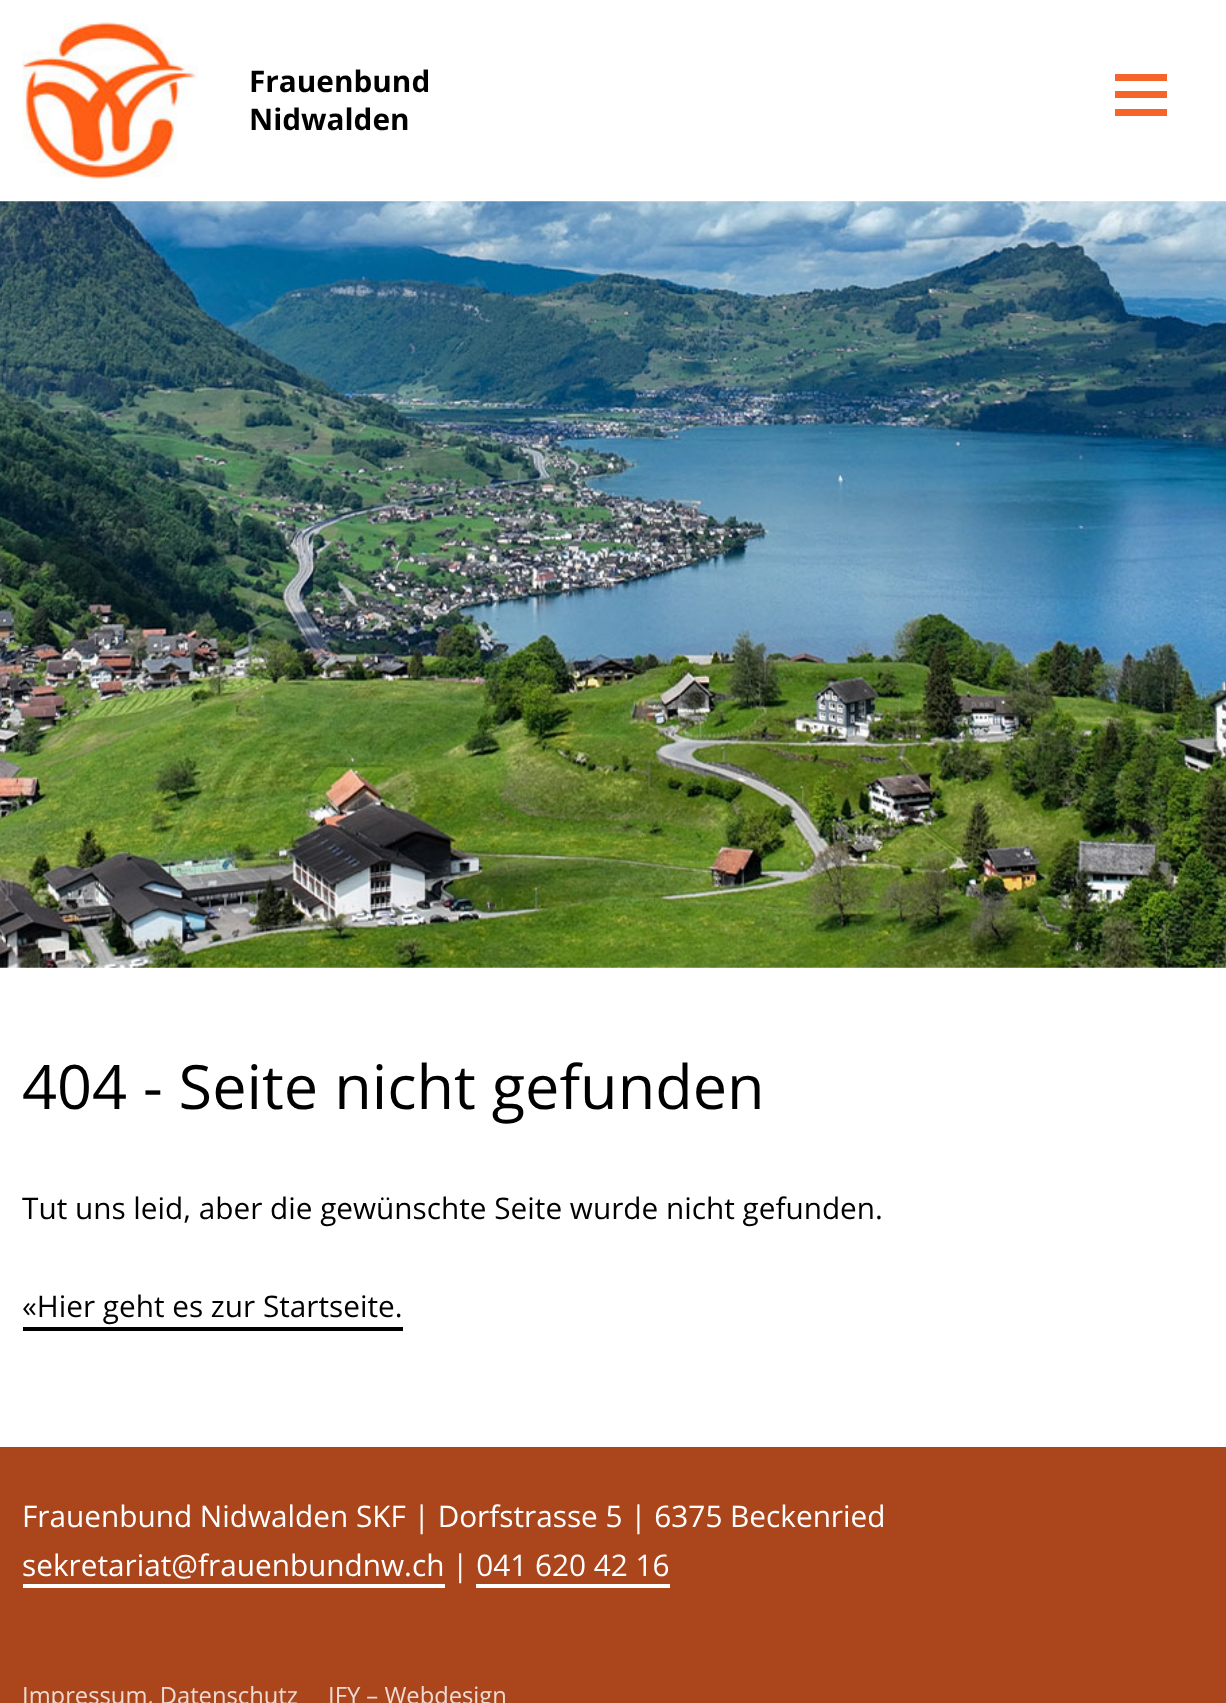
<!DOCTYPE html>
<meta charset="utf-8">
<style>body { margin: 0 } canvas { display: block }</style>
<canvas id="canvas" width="1226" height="1703"></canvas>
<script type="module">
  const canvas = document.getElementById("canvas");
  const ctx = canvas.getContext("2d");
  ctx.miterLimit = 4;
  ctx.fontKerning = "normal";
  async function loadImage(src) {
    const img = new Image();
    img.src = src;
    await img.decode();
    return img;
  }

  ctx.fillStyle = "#ffffff";
  ctx.fillRect(0, 0, 1226, 1703);
  ctx.drawImage(await loadImage("img1.png"), 22, 22, 176, 157);
  ctx.font = "bold 29.75px Open Sans";
  ctx.fillStyle = "#000000";
  ctx.fillText("Frauenbund", 249, 92);
  ctx.fillText("Nidwalden", 249, 130);
  ctx.fillStyle = "#f76429";
  ctx.fillRect(1115, 91, 52, 7);
  ctx.fillRect(1115, 74, 52, 7);
  ctx.fillRect(1115, 109, 52, 7);
  ctx.drawImage(await loadImage("img2.png"), 0, 201, 1226, 767);
  ctx.font = "61.25px Open Sans";
  ctx.fillStyle = "#000000";
  ctx.fillText("404 - Seite nicht gefunden", 22, 1109);
  ctx.font = "29.75px Open Sans";
  ctx.fillText("Tut uns leid, aber die gewünschte Seite wurde nicht gefunden.", 22, 1219);
  ctx.fillText("«Hier geht es zur Startseite.", 22, 1317);
  ctx.fillRect(23, 1327, 380, 4);
  ctx.fillStyle = "#aa451c";
  ctx.fillRect(0, 1447, 1226, 256);
  ctx.fillStyle = "#ffffff";
  ctx.fillText("Frauenbund Nidwalden SKF | Dorfstrasse 5 | 6375 Beckenried", 22, 1527);
  ctx.fillText("sekretariat@frauenbundnw.ch | 041 620 42 16", 22, 1576);
  ctx.fillRect(23, 1584, 422, 4);
  ctx.fillRect(476, 1584, 194, 4);
  ctx.font = "23.75px Open Sans";
  ctx.fillStyle = "#eedad2";
  ctx.fillText("Impressum, Datenschutz", 22, 1704);
  ctx.fillText("IFY – Webdesign", 328, 1704);
</script>
